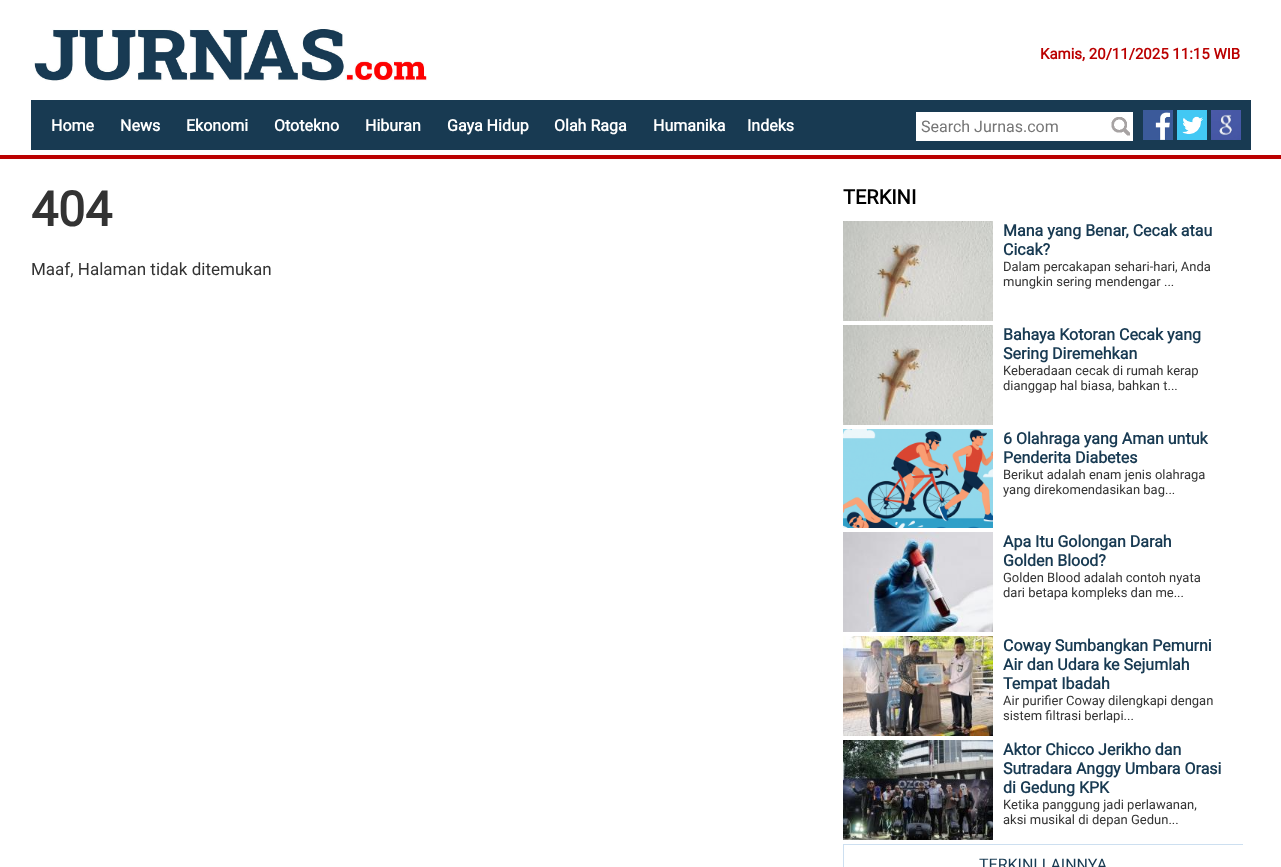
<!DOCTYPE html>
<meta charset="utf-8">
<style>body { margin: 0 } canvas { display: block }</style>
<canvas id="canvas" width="1281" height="867"></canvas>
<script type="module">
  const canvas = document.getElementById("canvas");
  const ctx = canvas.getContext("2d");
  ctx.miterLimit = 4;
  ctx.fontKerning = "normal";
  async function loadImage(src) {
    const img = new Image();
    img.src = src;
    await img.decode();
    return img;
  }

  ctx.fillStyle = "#ffffff";
  ctx.fillRect(0, 0, 1281, 867);
  ctx.fillStyle = "#bb0000";
  ctx.fillRect(0, 155, 1281, 4);
  ctx.drawImage(await loadImage("img1.png"), 34, 29, 393, 52);
  ctx.font = "bold 15px Roboto";
  ctx.fillText("Kamis, 20/11/2025 11:15 WIB", 1040, 59);
  ctx.fillStyle = "#183a52";
  ctx.fillRect(31, 100, 1220, 50);
  ctx.font = "bold 16px Roboto";
  ctx.fillStyle = "#ffffff";
  ctx.fillText("Home", 51, 131);
  ctx.fillText("News", 120, 131);
  ctx.fillText("Ekonomi", 186, 131);
  ctx.fillText("Ototekno", 274, 131);
  ctx.fillText("Hiburan", 365, 131);
  ctx.fillText("Gaya Hidup", 447, 131);
  ctx.fillText("Olah Raga", 554, 131);
  ctx.fillText("Humanika", 653, 131);
  ctx.fillText("Indeks", 747, 131);
  ctx.fillRect(916, 112, 217, 29);
  ctx.font = "16px Roboto";
  ctx.fillStyle = "#757575";
  ctx.fillText("Search Jurnas.com", 921, 132);
  ctx.drawImage(await loadImage("img2.png"), 1111, 117, 19, 19);
  ctx.drawImage(await loadImage("img3.png"), 1143, 110, 30, 30);
  ctx.drawImage(await loadImage("img4.png"), 1177, 110, 30, 30);
  ctx.drawImage(await loadImage("img5.png"), 1211, 110, 30, 30);
  ctx.font = "bold 48px Roboto";
  ctx.fillStyle = "#333333";
  ctx.fillText("404", 31, 226);
  ctx.font = "17px Roboto";
  ctx.fillText("Maaf, Halaman tidak ditemukan", 31, 275);
  ctx.font = "bold 20px Roboto";
  ctx.fillStyle = "#000000";
  ctx.fillText("TERKINI", 843, 204);
  ctx.drawImage(await loadImage("img6.png"), 843, 221, 150, 100);
  ctx.font = "bold 16px Roboto";
  ctx.fillStyle = "#183a52";
  ctx.fillText("Mana yang Benar, Cecak atau", 1003, 236);
  ctx.fillText("Cicak?", 1003, 255);
  ctx.font = "13px Roboto";
  ctx.fillStyle = "#333333";
  ctx.fillText("Dalam percakapan sehari-hari, Anda", 1003, 271);
  ctx.fillText("mungkin sering mendengar ...", 1003, 286);
  ctx.drawImage(await loadImage("img6.png"), 843, 325, 150, 100);
  ctx.font = "bold 16px Roboto";
  ctx.fillStyle = "#183a52";
  ctx.fillText("Bahaya Kotoran Cecak yang", 1003, 340);
  ctx.fillText("Sering Diremehkan", 1003, 359);
  ctx.font = "13px Roboto";
  ctx.fillStyle = "#333333";
  ctx.fillText("Keberadaan cecak di rumah kerap", 1003, 375);
  ctx.fillText("dianggap hal biasa, bahkan t...", 1003, 390);
  ctx.drawImage(await loadImage("img7.png"), 843, 429, 150, 99);
  ctx.font = "bold 16px Roboto";
  ctx.fillStyle = "#183a52";
  ctx.fillText("6 Olahraga yang Aman untuk", 1003, 444);
  ctx.fillText("Penderita Diabetes", 1003, 463);
  ctx.font = "13px Roboto";
  ctx.fillStyle = "#333333";
  ctx.fillText("Berikut adalah enam jenis olahraga", 1003, 479);
  ctx.fillText("yang direkomendasikan bag...", 1003, 494);
  ctx.drawImage(await loadImage("img8.png"), 843, 532, 150, 100);
  ctx.font = "bold 16px Roboto";
  ctx.fillStyle = "#183a52";
  ctx.fillText("Apa Itu Golongan Darah", 1003, 547);
  ctx.fillText("Golden Blood?", 1003, 566);
  ctx.font = "13px Roboto";
  ctx.fillStyle = "#333333";
  ctx.fillText("Golden Blood adalah contoh nyata", 1003, 582);
  ctx.fillText("dari betapa kompleks dan me...", 1003, 597);
  ctx.drawImage(await loadImage("img9.png"), 843, 636, 150, 100);
  ctx.font = "bold 16px Roboto";
  ctx.fillStyle = "#183a52";
  ctx.fillText("Coway Sumbangkan Pemurni", 1003, 651);
  ctx.fillText("Air dan Udara ke Sejumlah", 1003, 670);
  ctx.fillText("Tempat Ibadah", 1003, 689);
  ctx.font = "13px Roboto";
  ctx.fillStyle = "#333333";
  ctx.fillText("Air purifier Coway dilengkapi dengan", 1003, 705);
  ctx.fillText("sistem filtrasi berlapi...", 1003, 720);
  ctx.drawImage(await loadImage("img10.png"), 843, 740, 150, 100);
  ctx.font = "bold 16px Roboto";
  ctx.fillStyle = "#183a52";
  ctx.fillText("Aktor Chicco Jerikho dan", 1003, 755);
  ctx.fillText("Sutradara Anggy Umbara Orasi", 1003, 774);
  ctx.fillText("di Gedung KPK", 1003, 793);
  ctx.font = "13px Roboto";
  ctx.fillStyle = "#333333";
  ctx.fillText("Ketika panggung jadi perlawanan,", 1003, 809);
  ctx.fillText("aksi musikal di depan Gedun...", 1003, 824);
  ctx.save();
  ctx.beginPath();
  ctx.rect(843, 179, 400, 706);
  ctx.clip();
  ctx.strokeStyle = "#cddff0";
  ctx.strokeRect(843.5, 844.5, 401, 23);
  ctx.restore();
  ctx.font = "16px Roboto";
  ctx.fillStyle = "#183a52";
  ctx.fillText("TERKINI LAINNYA", 979, 870);
</script>
